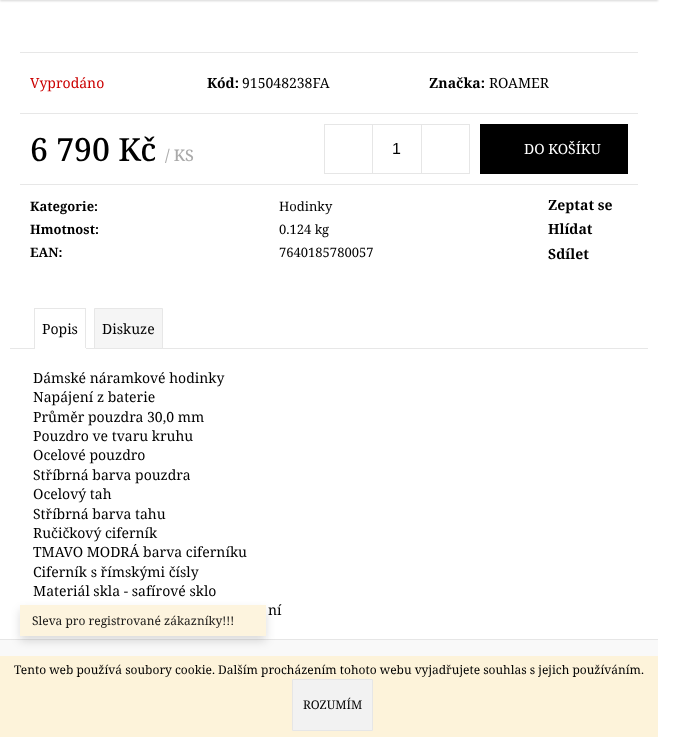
<!DOCTYPE html>
<meta charset="utf-8">
<style>body { margin: 0 } canvas { display: block }</style>
<canvas id="canvas" width="673" height="737"></canvas>
<script type="module">
  const canvas = document.getElementById("canvas");
  const ctx = canvas.getContext("2d");
  ctx.miterLimit = 4;
  ctx.fontKerning = "normal";

  ctx.fillStyle = "#ffffff";
  ctx.fillRect(0, 0, 673, 737);
  ctx.fillStyle = "rgba(0, 0, 0, 0.16)";
  ctx.filter = "blur(1px)";
  ctx.beginPath();
  ctx.rect(0, -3, 658, 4);
  ctx.fill();
  ctx.filter = "none";
  ctx.fillStyle = "#e7e7e7";
  ctx.fillRect(20, 52, 618, 1);
  ctx.fillRect(20, 113, 618, 1);
  ctx.font = "14px Noto Serif";
  ctx.fillStyle = "#cb0000";
  ctx.fillText("Vyprodáno", 30, 88);
  ctx.font = "bold 14px Noto Serif";
  ctx.fillStyle = "#000000";
  ctx.fillText("Kód:", 207, 88);
  ctx.font = "14px Noto Serif";
  ctx.fillText("915048238FA", 242, 88);
  ctx.font = "bold 14px Noto Serif";
  ctx.fillText("Značka:", 429, 88);
  ctx.font = "14px Noto Serif";
  ctx.fillText("ROAMER", 489, 88);
  ctx.fillStyle = "#e7e7e7";
  ctx.fillRect(20, 184, 618, 1);
  ctx.font = "500 32px Noto Serif";
  ctx.fillStyle = "#000000";
  ctx.fillText("6 790 Kč", 30, 161);
  ctx.font = "500 16px Noto Serif";
  ctx.fillStyle = "#aaaaaa";
  ctx.fillText("/ KS", 165, 161);
  ctx.strokeStyle = "#e6e6e6";
  ctx.strokeRect(324.5, 124.5, 145, 49);
  ctx.fillStyle = "#e6e6e6";
  ctx.fillRect(372, 125, 1, 48);
  ctx.font = "16px Liberation Sans";
  ctx.fillStyle = "#000000";
  ctx.fillText("1", 392, 154);
  ctx.fillStyle = "#e6e6e6";
  ctx.fillRect(421, 125, 1, 48);
  ctx.fillStyle = "#000000";
  ctx.fillRect(480, 124, 148, 50);
  ctx.font = "14px Noto Serif";
  ctx.fillStyle = "#ffffff";
  ctx.fillText("DO KOŠÍKU", 524, 154);
  ctx.font = "bold 13px Noto Serif";
  ctx.fillStyle = "#000000";
  ctx.fillText("Kategorie:", 30, 211);
  ctx.font = "13px Noto Serif";
  ctx.fillText("Hodinky", 279, 211);
  ctx.font = "bold 13px Noto Serif";
  ctx.fillText("Hmotnost:", 30, 234);
  ctx.font = "13px Noto Serif";
  ctx.fillText("0.124 kg", 279, 234);
  ctx.font = "bold 13px Noto Serif";
  ctx.fillText("EAN:", 30, 257);
  ctx.font = "13px Noto Serif";
  ctx.fillText("7640185780057", 279, 257);
  ctx.font = "bold 14px Noto Serif";
  ctx.fillText("Zeptat se", 548, 210);
  ctx.fillText("Hlídat", 548, 234);
  ctx.fillText("Sdílet", 548, 259);
  ctx.fillStyle = "#e7e7e7";
  ctx.fillRect(10, 348, 638, 1);
  ctx.fillRect(34, 308, 52, 1);
  ctx.fillRect(85, 308, 1, 41);
  ctx.fillStyle = "#ffffff";
  ctx.fillRect(34, 348, 52, 1);
  ctx.fillStyle = "#e7e7e7";
  ctx.fillRect(34, 308, 1, 41);
  ctx.font = "14px Noto Serif";
  ctx.fillStyle = "#000000";
  ctx.fillText("Popis", 42, 334);
  ctx.fillStyle = "#f5f5f5";
  ctx.beginPath();
  ctx.rect(94.5, 308.5, 68, 40);
  ctx.fill();
  ctx.strokeStyle = "#e7e7e7";
  ctx.stroke();
  ctx.fillStyle = "#000000";
  ctx.fillText("Diskuze", 102, 334);
  ctx.fillText("Dámské náramkové hodinky", 33, 383);
  ctx.fillText("Napájení z baterie", 33, 402);
  ctx.fillText("Průměr pouzdra 30,0 mm", 33, 422);
  ctx.fillText("Pouzdro ve tvaru kruhu", 33, 441);
  ctx.fillText("Ocelové pouzdro", 33, 460);
  ctx.fillText("Stříbrná barva pouzdra", 33, 480);
  ctx.fillText("Ocelový tah", 33, 499);
  ctx.fillText("Stříbrná barva tahu", 33, 519);
  ctx.fillText("Ručičkový ciferník", 33, 538);
  ctx.fillText("TMAVO MODRÁ barva ciferníku", 33, 557);
  ctx.fillText("Ciferník s římskými čísly", 33, 577);
  ctx.fillText("Materiál skla - safírové sklo", 33, 596);
  ctx.fillText("ní", 268, 615);
  ctx.fillStyle = "#f9f9f9";
  ctx.fillRect(0, 640, 658, 16);
  ctx.fillStyle = "#e6e6e6";
  ctx.fillRect(0, 639, 658, 1);
  ctx.save();
  ctx.beginPath();
  ctx.moveTo(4, 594);
  ctx.lineTo(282, 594);
  ctx.lineTo(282, 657);
  ctx.lineTo(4, 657);
  ctx.closePath();
  ctx.moveTo(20, 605);
  ctx.lineTo(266, 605);
  ctx.lineTo(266, 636);
  ctx.lineTo(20, 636);
  ctx.closePath();
  ctx.clip("evenodd");
  ctx.fillStyle = "rgba(0, 0, 0, 0.14)";
  ctx.filter = "blur(5px)";
  ctx.beginPath();
  ctx.rect(20, 610, 246, 31);
  ctx.fill();
  ctx.filter = "none";
  ctx.restore();
  ctx.fillStyle = "rgba(253, 243, 218, 0.9)";
  ctx.fillRect(20, 605, 246, 31);
  ctx.font = "12px Noto Serif";
  ctx.fillStyle = "#191816";
  ctx.fillText("Sleva pro registrované zákazníky!!!", 32, 625);
  ctx.fillStyle = "#fdf3da";
  ctx.fillRect(0, 656, 658, 81);
  ctx.fillStyle = "#000000";
  ctx.fillText("Tento web používá soubory cookie. Dalším procházením tohoto webu vyjadřujete souhlas s jejich používáním.", 14, 674);
  ctx.fillStyle = "#f2f2f2";
  ctx.beginPath();
  ctx.rect(292.5, 679.5, 80, 51);
  ctx.fill();
  ctx.strokeStyle = "#e6e6e6";
  ctx.stroke();
  ctx.fillStyle = "#000000";
  ctx.fillText("ROZUMÍM", 303, 709);
</script>
